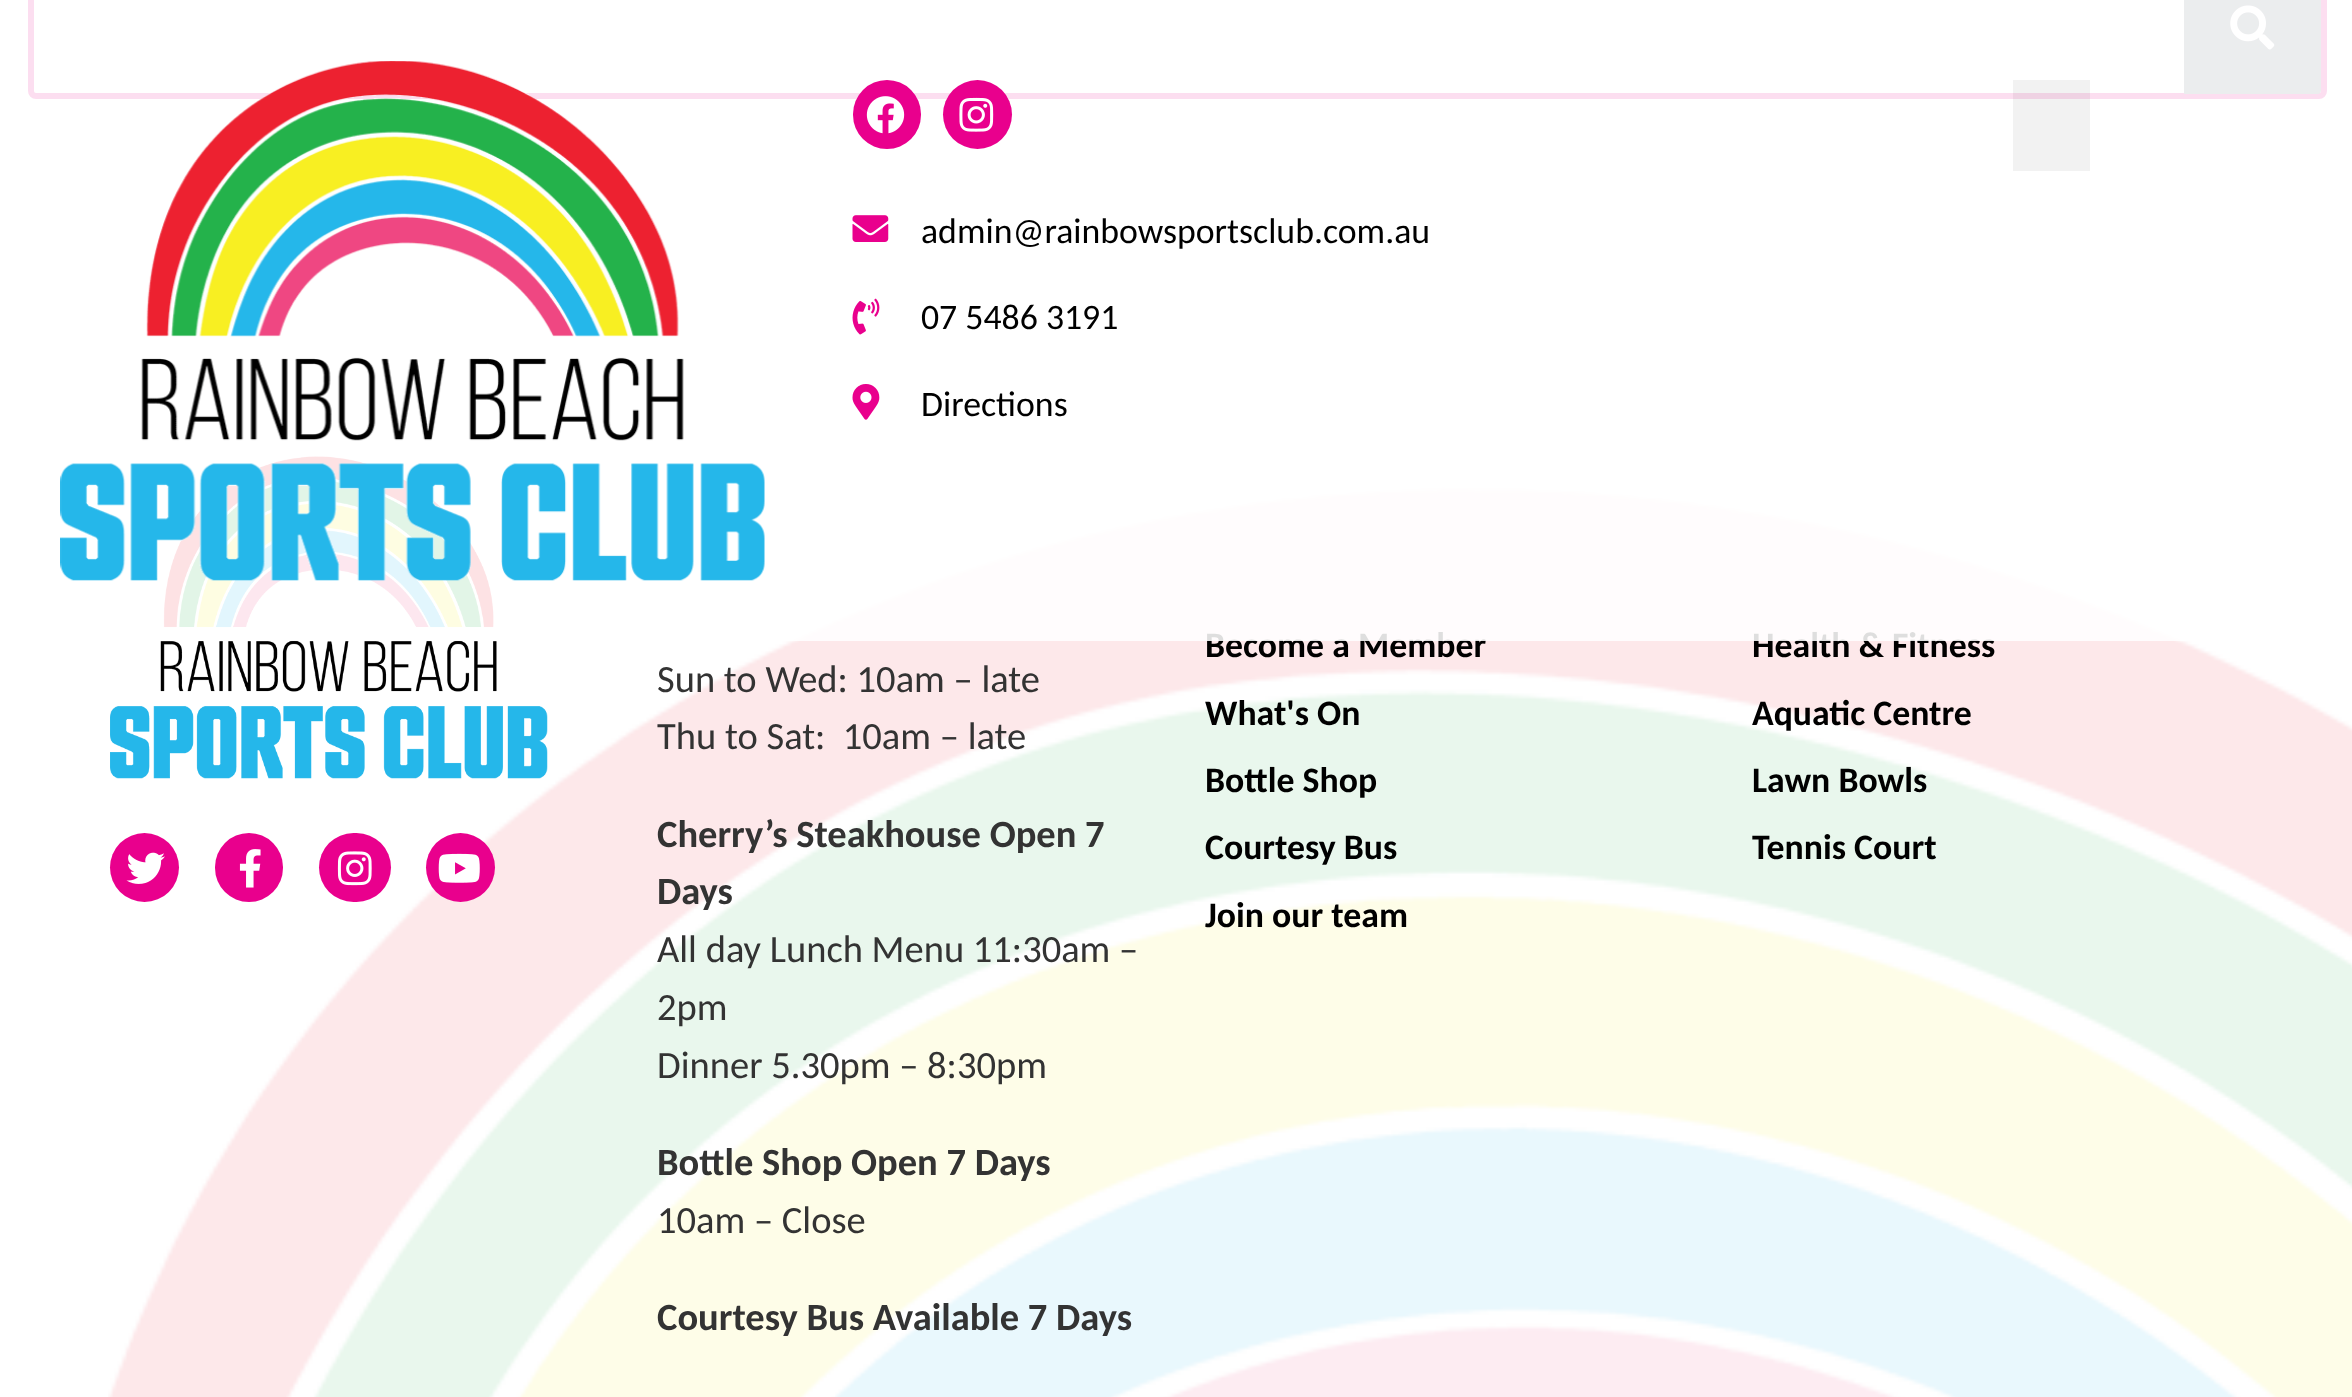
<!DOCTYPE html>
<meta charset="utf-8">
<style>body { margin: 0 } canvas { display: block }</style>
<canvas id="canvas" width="2352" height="1397"></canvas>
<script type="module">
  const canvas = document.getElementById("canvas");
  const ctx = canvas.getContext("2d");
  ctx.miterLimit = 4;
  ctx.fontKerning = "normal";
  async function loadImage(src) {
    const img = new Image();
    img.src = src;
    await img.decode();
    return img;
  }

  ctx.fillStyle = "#ffffff";
  ctx.fillRect(0, 0, 2352, 1397);
  ctx.beginPath();
  ctx.roundRect(31, -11, 2293, 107, 5);
  ctx.strokeStyle = "#e9008d";
  ctx.lineWidth = 6;
  ctx.stroke();
  ctx.fillStyle = "#69727d";
  ctx.beginPath();
  ctx.moveTo(2184, -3);
  ctx.lineTo(2318, -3);
  ctx.bezierCurveTo(2319.5, -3, 2321, -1.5, 2321, 0);
  ctx.lineTo(2321, 91);
  ctx.bezierCurveTo(2321, 92.5, 2319.5, 94, 2318, 94);
  ctx.lineTo(2184, 94);
  ctx.closePath();
  ctx.fill();
  ctx.drawImage(await loadImage("img1.png"), 2230, 5, 45, 45);
  ctx.drawImage(await loadImage("img8.png"), 108, 487, 2244, 910);
  ctx.drawImage(await loadImage("img9.png"), 110, 456, 438, 323);
  ctx.font = "bold 35.75px Carlito";
  ctx.fillStyle = "#000000";
  ctx.fillText("Become a Member", 1205, 657);
  ctx.fillText("Health & Fitness", 1752, 657);
  ctx.fillStyle = "rgba(255, 255, 255, 0.87)";
  ctx.fillRect(28, 0, 2299, 641);
  ctx.drawImage(await loadImage("img2.png"), 60, 61, 705, 520);
  ctx.fillStyle = "rgba(0, 0, 0, 0.05)";
  ctx.fillRect(2013, 80, 77, 91);
  ctx.fillStyle = "#e9008d";
  ctx.beginPath();
  ctx.roundRect(853, 80, 68, 69, 34);
  ctx.fill();
  ctx.drawImage(await loadImage("img3.png"), 866, 96, 39, 38);
  ctx.beginPath();
  ctx.arc(977.5, 114.5, 34.5, 0, Math.PI * 2);
  ctx.fill();
  ctx.drawImage(await loadImage("img4.png"), 959, 97, 35, 35);
  ctx.drawImage(await loadImage("img5.png"), 852, 215, 37, 27);
  ctx.font = "35.75px Carlito";
  ctx.fillStyle = "#000000";
  ctx.fillText("admin@rainbowsportsclub.com.au", 921, 243);
  ctx.drawImage(await loadImage("img6.png"), 852, 298, 28, 37);
  ctx.fillText("07 5486 3191", 921, 329);
  ctx.drawImage(await loadImage("img7.png"), 852, 384, 28, 36);
  ctx.fillText("Directions", 921, 416);
  ctx.fillStyle = "#e9008d";
  ctx.beginPath();
  ctx.arc(144.5, 867.5, 34.5, 0, Math.PI * 2);
  ctx.fill();
  ctx.drawImage(await loadImage("img10.png"), 126, 852, 39, 32);
  ctx.beginPath();
  ctx.roundRect(215, 833, 68, 69, 34);
  ctx.fill();
  ctx.drawImage(await loadImage("img11.png"), 239, 849, 22, 39);
  ctx.beginPath();
  ctx.roundRect(319, 833, 72, 69, 34.5);
  ctx.fill();
  ctx.drawImage(await loadImage("img12.png"), 337, 851, 35, 35);
  ctx.beginPath();
  ctx.arc(460.5, 867.5, 34.5, 0, Math.PI * 2);
  ctx.fill();
  ctx.drawImage(await loadImage("img13.png"), 438, 853, 42, 30);
  ctx.font = "38.5px Carlito";
  ctx.fillStyle = "#333333";
  ctx.fillText("Sun to Wed: 10am – late", 657, 692);
  ctx.fillText("Thu to Sat:  10am – late", 657, 749);
  ctx.font = "bold 38.5px Carlito";
  ctx.fillText("Cherry’s Steakhouse Open 7", 657, 847);
  ctx.fillText("Days", 657, 904);
  ctx.font = "38.5px Carlito";
  ctx.fillText("All day Lunch Menu 11:30am –", 657, 962);
  ctx.fillText("2pm", 657, 1020);
  ctx.fillText("Dinner 5.30pm – 8:30pm", 657, 1078);
  ctx.font = "bold 38.5px Carlito";
  ctx.fillText("Bottle Shop Open 7 Days", 657, 1175);
  ctx.font = "38.5px Carlito";
  ctx.fillText("10am – Close", 657, 1233);
  ctx.font = "bold 38.5px Carlito";
  ctx.fillText("Courtesy Bus Available 7 Days", 657, 1330);
  ctx.font = "bold 35.75px Carlito";
  ctx.fillStyle = "#000000";
  ctx.fillText("What's On", 1205, 725);
  ctx.fillText("Bottle Shop", 1205, 792);
  ctx.fillText("Courtesy Bus", 1205, 859);
  ctx.fillText("Join our team", 1205, 927);
  ctx.fillText("Aquatic Centre", 1752, 725);
  ctx.fillText("Lawn Bowls", 1752, 792);
  ctx.fillText("Tennis Court", 1752, 859);
</script>
